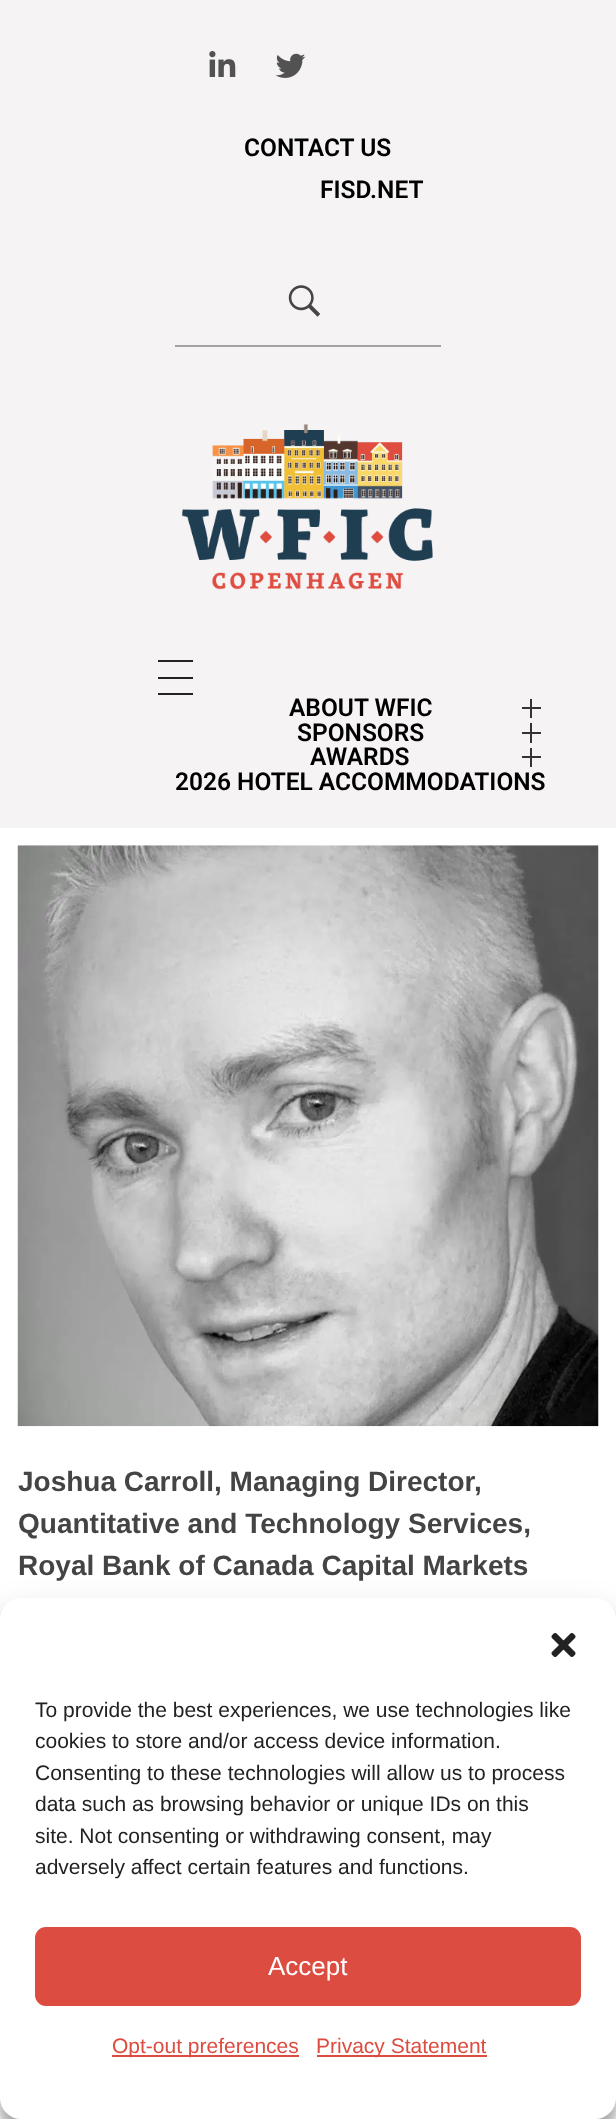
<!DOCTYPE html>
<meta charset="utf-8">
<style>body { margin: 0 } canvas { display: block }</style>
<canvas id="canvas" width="616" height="2119"></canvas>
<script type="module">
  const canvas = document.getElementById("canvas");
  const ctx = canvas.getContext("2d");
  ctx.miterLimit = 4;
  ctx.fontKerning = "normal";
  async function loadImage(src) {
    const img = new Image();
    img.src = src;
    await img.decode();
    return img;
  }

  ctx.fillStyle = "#ffffff";
  ctx.fillRect(0, 0, 616, 2119);
  ctx.fillStyle = "#f6f3f5";
  ctx.fillRect(0, 0, 616, 828);
  ctx.fillStyle = "#a3a2a3";
  ctx.fillRect(175, 345, 266, 2);
  ctx.drawImage(await loadImage("img1.png"), 209, 51, 27, 26);
  ctx.drawImage(await loadImage("img2.png"), 275, 53, 31, 25);
  ctx.font = "600 24.5px Roboto";
  ctx.fillStyle = "#000000";
  ctx.fillText("CONTACT US", 244, 156);
  ctx.fillText("FISD.NET", 320, 198);
  ctx.drawImage(await loadImage("img3.png"), 288, 285, 33, 32);
  ctx.drawImage(await loadImage("img4.png"), 181, 424, 252, 166);
  ctx.fillStyle = "#222222";
  ctx.fillRect(158, 660, 35, 2);
  ctx.fillRect(158, 677, 35, 2);
  ctx.fillRect(158, 693, 35, 2);
  ctx.fillStyle = "#000000";
  ctx.fillText("ABOUT WFIC", 289, 716);
  ctx.fillStyle = "#333333";
  ctx.fillRect(522, 707, 19, 2);
  ctx.fillRect(530, 699, 2, 19);
  ctx.fillStyle = "#000000";
  ctx.fillText("SPONSORS", 297, 741);
  ctx.fillStyle = "#333333";
  ctx.fillRect(522, 732, 19, 2);
  ctx.fillRect(530, 723, 2, 20);
  ctx.fillStyle = "#000000";
  ctx.fillText("AWARDS", 310, 765);
  ctx.fillStyle = "#333333";
  ctx.fillRect(522, 756, 19, 2);
  ctx.fillRect(530, 748, 2, 19);
  ctx.fillStyle = "#000000";
  ctx.fillText("2026 HOTEL ACCOMMODATIONS", 175, 790);
  ctx.drawImage(await loadImage("img5.png"), 17, 845, 582, 582);
  ctx.font = "bold 28px Liberation Sans";
  ctx.fillStyle = "#444444";
  ctx.fillText("Joshua Carroll, Managing Director,", 18, 1491);
  ctx.fillText("Quantitative and Technology Services,", 18, 1533);
  ctx.fillText("Royal Bank of Canada Capital Markets", 18, 1575);
  ctx.fillStyle = "rgba(0, 0, 0, 0.23)";
  ctx.filter = "blur(5px)";
  ctx.beginPath();
  ctx.roundRect(0, 1608, 616, 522, 21);
  ctx.fill();
  ctx.filter = "none";
  ctx.fillStyle = "rgba(0, 0, 0, 0.19)";
  ctx.filter = "blur(17.5px)";
  ctx.beginPath();
  ctx.roundRect(0, 1615, 616, 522, 21);
  ctx.fill();
  ctx.filter = "none";
  ctx.fillStyle = "#ffffff";
  ctx.beginPath();
  ctx.roundRect(0, 1598, 616, 521, 21);
  ctx.fill();
  ctx.drawImage(await loadImage("img6.png"), 551, 1633, 25, 24);
  ctx.font = "21px Liberation Sans";
  ctx.fillStyle = "#222222";
  ctx.fillText("To provide the best experiences, we use technologies like", 35, 1717);
  ctx.fillText("cookies to store and/or access device information.", 35, 1748);
  ctx.fillText("Consenting to these technologies will allow us to process", 35, 1780);
  ctx.fillText("data such as browsing behavior or unique IDs on this", 35, 1811);
  ctx.fillText("site. Not consenting or withdrawing consent, may", 35, 1843);
  ctx.fillText("adversely affect certain features and functions.", 35, 1874);
  ctx.fillStyle = "#dd4c40";
  ctx.beginPath();
  ctx.roundRect(36, 1928, 544, 77, 10);
  ctx.fill();
  ctx.strokeStyle = "#dd4c40";
  ctx.lineWidth = 2;
  ctx.stroke();
  ctx.font = "26px Liberation Sans";
  ctx.fillStyle = "#ffffff";
  ctx.fillText("Accept", 268, 1975);
  ctx.fillStyle = "#dd4c40";
  ctx.fillRect(112, 2055, 187, 2);
  ctx.font = "21px Liberation Sans";
  ctx.fillText("Opt-out preferences", 112, 2053);
  ctx.fillRect(317, 2055, 170, 2);
  ctx.fillText("Privacy Statement", 316, 2053);
</script>
